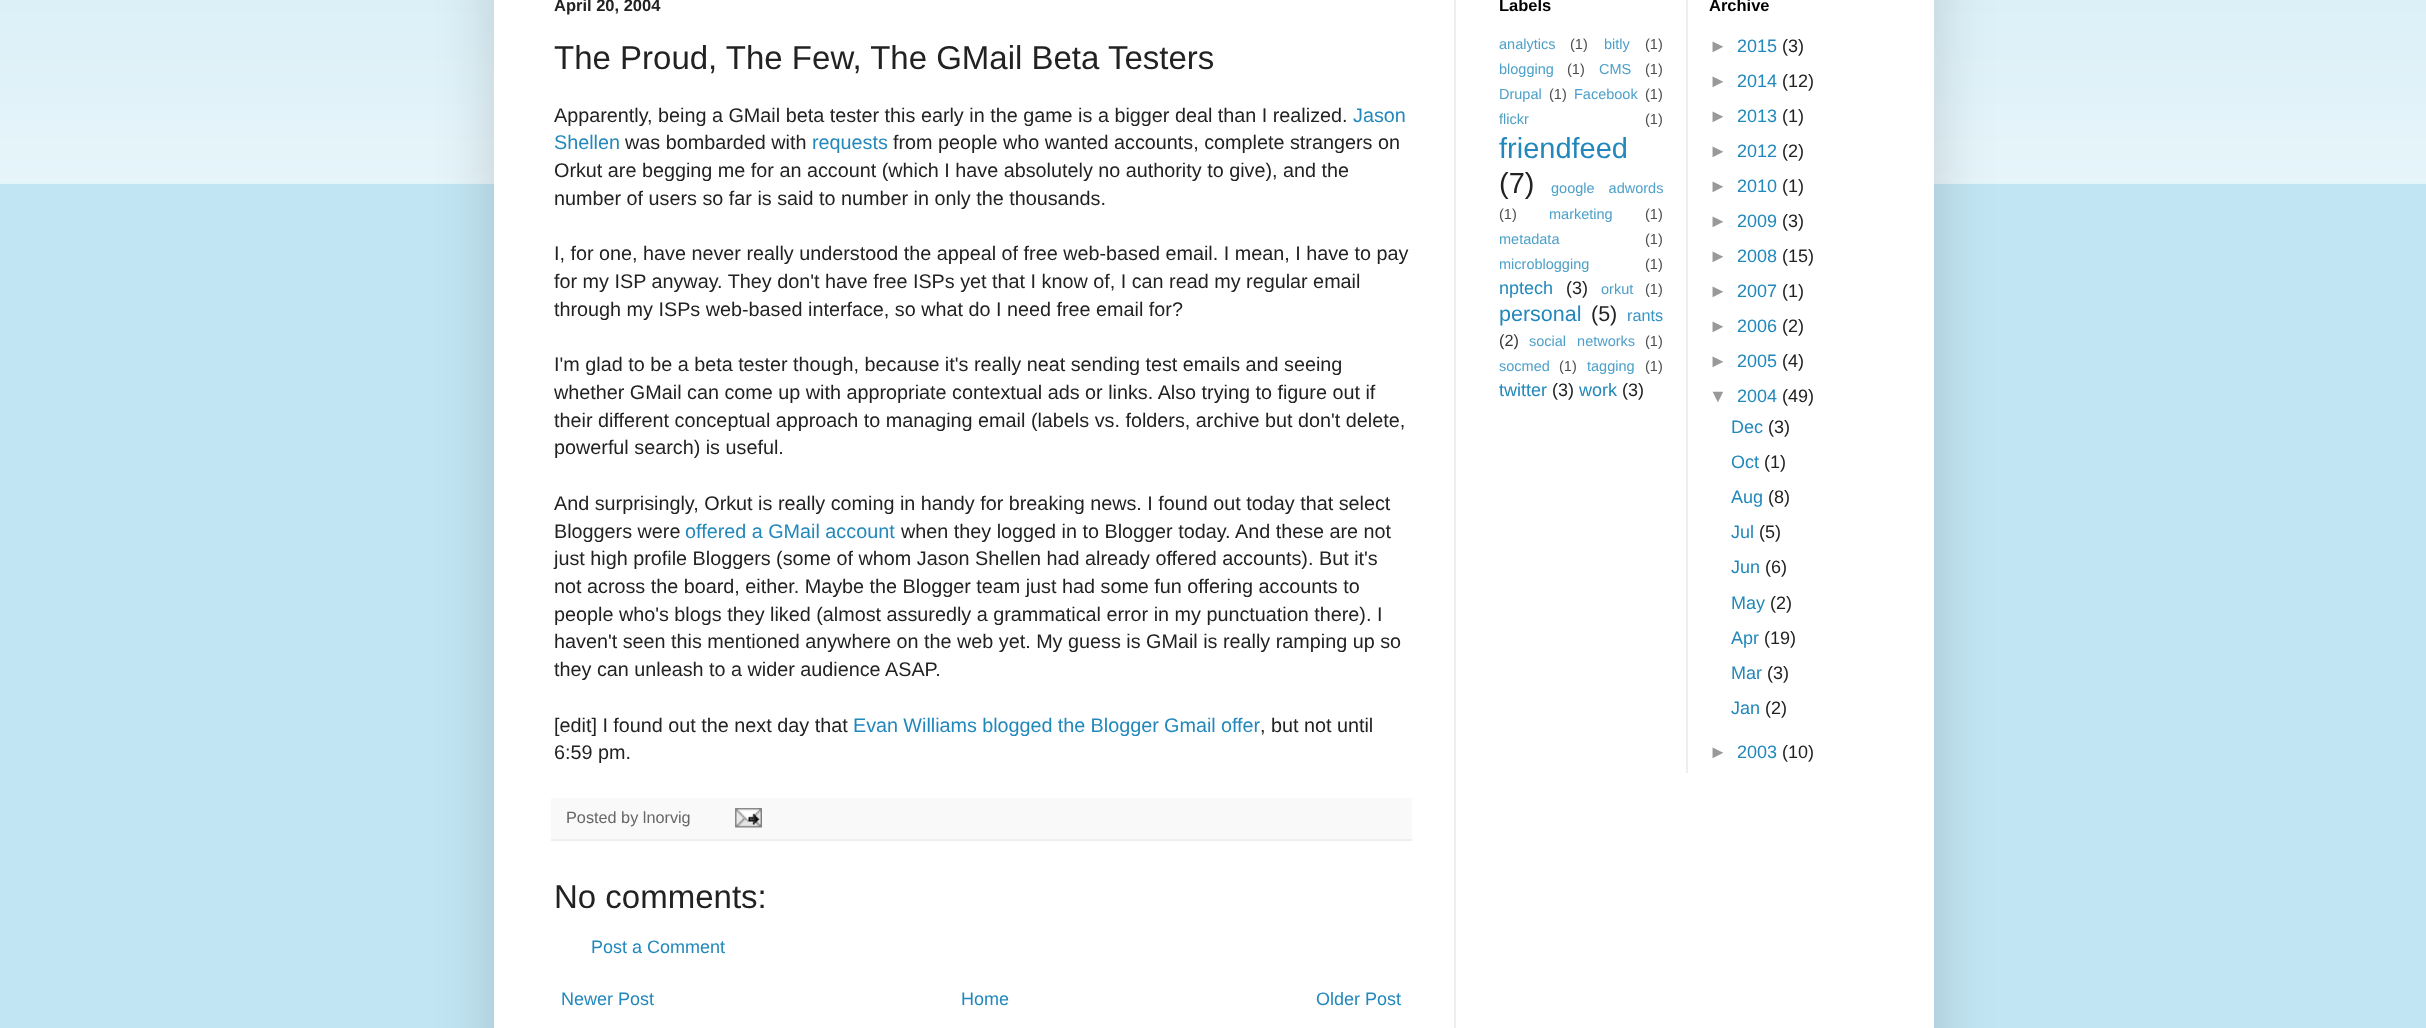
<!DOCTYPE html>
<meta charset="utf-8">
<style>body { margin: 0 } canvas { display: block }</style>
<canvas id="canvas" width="2426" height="1028"></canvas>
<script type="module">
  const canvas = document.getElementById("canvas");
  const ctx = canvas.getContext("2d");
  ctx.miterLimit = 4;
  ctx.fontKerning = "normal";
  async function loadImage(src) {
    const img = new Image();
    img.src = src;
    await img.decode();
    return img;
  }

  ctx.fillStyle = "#c1e5f2";
  ctx.fillRect(0, 0, 2426, 1028);
  ctx.drawImage(await loadImage("img1.png"), 0, 0, 2426, 184);
  ctx.fillStyle = "rgba(0, 0, 0, 0.15)";
  ctx.filter = "blur(30px)";
  ctx.beginPath();
  ctx.rect(494, -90, 1440, 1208);
  ctx.fill();
  ctx.filter = "none";
  ctx.fillStyle = "#ffffff";
  ctx.fillRect(494, 0, 1440, 1028);
  ctx.font = "bold 16.5px Liberation Sans";
  ctx.fillStyle = "#222222";
  ctx.fillText("April 20, 2004", 554, 11);
  ctx.font = "33px Liberation Sans";
  ctx.fillText("The Proud, The Few, The GMail Beta Testers", 554, 69);
  ctx.font = "19.8px Liberation Sans";
  ctx.fillText("Apparently, being a GMail beta tester this early in the game is a bigger deal than I realized.", 554, 122);
  ctx.fillStyle = "#2288bb";
  ctx.fillText("Jason", 1353, 122);
  ctx.fillText("Shellen", 554, 149);
  ctx.fillStyle = "#222222";
  ctx.fillText("was bombarded with", 625, 149);
  ctx.fillStyle = "#2288bb";
  ctx.fillText("requests", 812, 149);
  ctx.fillStyle = "#222222";
  ctx.fillText("from people who wanted accounts, complete strangers on", 893, 149);
  ctx.fillText("Orkut are begging me for an account (which I have absolutely no authority to give), and the", 554, 177);
  ctx.fillText("number of users so far is said to number in only the thousands.", 554, 205);
  ctx.fillText("I, for one, have never really understood the appeal of free web-based email. I mean, I have to pay", 554, 260);
  ctx.fillText("for my ISP anyway. They don't have free ISPs yet that I know of, I can read my regular email", 554, 288);
  ctx.fillText("through my ISPs web-based interface, so what do I need free email for?", 554, 316);
  ctx.fillText("I'm glad to be a beta tester though, because it's really neat sending test emails and seeing", 554, 371);
  ctx.fillText("whether GMail can come up with appropriate contextual ads or links. Also trying to figure out if", 554, 399);
  ctx.fillText("their different conceptual approach to managing email (labels vs. folders, archive but don't delete,", 554, 427);
  ctx.fillText("powerful search) is useful.", 554, 454);
  ctx.fillText("And surprisingly, Orkut is really coming in handy for breaking news. I found out today that select", 554, 510);
  ctx.fillText("Bloggers were", 554, 538);
  ctx.fillStyle = "#2288bb";
  ctx.fillText("offered a GMail account", 685, 538);
  ctx.fillStyle = "#222222";
  ctx.fillText("when they logged in to Blogger today. And these are not", 901, 538);
  ctx.fillText("just high profile Bloggers (some of whom Jason Shellen had already offered accounts). But it's", 554, 565);
  ctx.fillText("not across the board, either. Maybe the Blogger team just had some fun offering accounts to", 554, 593);
  ctx.fillText("people who's blogs they liked (almost assuredly a grammatical error in my punctuation there). I", 554, 621);
  ctx.fillText("haven't seen this mentioned anywhere on the web yet. My guess is GMail is really ramping up so", 554, 648);
  ctx.fillText("they can unleash to a wider audience ASAP.", 554, 676);
  ctx.fillText("[edit] I found out the next day that", 554, 732);
  ctx.wordSpacing = "-0.25px";
  ctx.fillStyle = "#2288bb";
  ctx.fillText("Evan Williams blogged the Blogger Gmail offer", 853, 732);
  ctx.wordSpacing = "0px";
  ctx.fillStyle = "#222222";
  ctx.fillText(", but not until", 1260, 732);
  ctx.fillText("6:59 pm.", 554, 759);
  ctx.fillStyle = "#f9f9f9";
  ctx.fillRect(551, 798, 861, 41);
  ctx.fillStyle = "#eeeeee";
  ctx.fillRect(551, 839, 861, 2);
  ctx.font = "16.25px Liberation Sans";
  ctx.fillStyle = "#666666";
  ctx.fillText("Posted by lnorvig", 566, 823);
  ctx.drawImage(await loadImage("img2.png"), 735, 808, 27, 20);
  ctx.font = "33px Liberation Sans";
  ctx.fillStyle = "#222222";
  ctx.fillText("No comments:", 554, 908);
  ctx.font = "18px Liberation Sans";
  ctx.fillStyle = "#2288bb";
  ctx.fillText("Post a Comment", 591, 953);
  ctx.fillText("Newer Post", 561, 1005);
  ctx.fillText("Home", 961, 1005);
  ctx.fillText("Older Post", 1316, 1005);
  ctx.font = "bold 16.5px Liberation Sans";
  ctx.fillStyle = "#000000";
  ctx.fillText("Labels", 1499, 11);
  ctx.font = "14.5px Liberation Sans";
  ctx.fillStyle = "#4ea0c9";
  ctx.fillText("analytics", 1499, 49);
  ctx.fillStyle = "#4e4e4e";
  ctx.fillText("(1)", 1570, 49);
  ctx.fillStyle = "#4ea0c9";
  ctx.fillText("bitly", 1604, 49);
  ctx.fillStyle = "#4e4e4e";
  ctx.fillText("(1)", 1645, 49);
  ctx.fillStyle = "#4ea0c9";
  ctx.fillText("blogging", 1499, 74);
  ctx.fillStyle = "#4e4e4e";
  ctx.fillText("(1)", 1567, 74);
  ctx.fillStyle = "#4ea0c9";
  ctx.fillText("CMS", 1599, 74);
  ctx.fillStyle = "#4e4e4e";
  ctx.fillText("(1)", 1645, 74);
  ctx.fillStyle = "#4ea0c9";
  ctx.fillText("Drupal", 1499, 99);
  ctx.fillStyle = "#4e4e4e";
  ctx.fillText("(1)", 1549, 99);
  ctx.fillStyle = "#4ea0c9";
  ctx.fillText("Facebook", 1574, 99);
  ctx.fillStyle = "#4e4e4e";
  ctx.fillText("(1)", 1645, 99);
  ctx.fillStyle = "#4ea0c9";
  ctx.fillText("flickr", 1499, 124);
  ctx.fillStyle = "#4e4e4e";
  ctx.fillText("(1)", 1645, 124);
  ctx.font = "29px Liberation Sans";
  ctx.fillStyle = "#2288bb";
  ctx.fillText("friendfeed", 1499, 158);
  ctx.fillStyle = "#222222";
  ctx.fillText("(7)", 1499, 193);
  ctx.wordSpacing = "10px";
  ctx.font = "14.5px Liberation Sans";
  ctx.fillStyle = "#4ea0c9";
  ctx.fillText("google adwords", 1551, 193);
  ctx.wordSpacing = "0px";
  ctx.fillStyle = "#4e4e4e";
  ctx.fillText("(1)", 1499, 219);
  ctx.fillStyle = "#4ea0c9";
  ctx.fillText("marketing", 1549, 219);
  ctx.fillStyle = "#4e4e4e";
  ctx.fillText("(1)", 1645, 219);
  ctx.fillStyle = "#4ea0c9";
  ctx.fillText("metadata", 1499, 244);
  ctx.fillStyle = "#4e4e4e";
  ctx.fillText("(1)", 1645, 244);
  ctx.fillStyle = "#4ea0c9";
  ctx.fillText("microblogging", 1499, 269);
  ctx.fillStyle = "#4e4e4e";
  ctx.fillText("(1)", 1645, 269);
  ctx.font = "18px Liberation Sans";
  ctx.fillStyle = "#2288bb";
  ctx.fillText("nptech", 1499, 294);
  ctx.fillStyle = "#222222";
  ctx.fillText("(3)", 1566, 294);
  ctx.font = "14.5px Liberation Sans";
  ctx.fillStyle = "#4ea0c9";
  ctx.fillText("orkut", 1601, 294);
  ctx.fillStyle = "#4e4e4e";
  ctx.fillText("(1)", 1645, 294);
  ctx.font = "21.5px Liberation Sans";
  ctx.fillStyle = "#2288bb";
  ctx.fillText("personal", 1499, 321);
  ctx.fillStyle = "#222222";
  ctx.fillText("(5)", 1591, 321);
  ctx.font = "16.25px Liberation Sans";
  ctx.fillStyle = "#3894c2";
  ctx.fillText("rants", 1627, 321);
  ctx.fillStyle = "#383838";
  ctx.fillText("(2)", 1499, 346);
  ctx.wordSpacing = "7px";
  ctx.font = "14.5px Liberation Sans";
  ctx.fillStyle = "#4ea0c9";
  ctx.fillText("social networks", 1529, 346);
  ctx.wordSpacing = "0px";
  ctx.fillStyle = "#4e4e4e";
  ctx.fillText("(1)", 1645, 346);
  ctx.fillStyle = "#4ea0c9";
  ctx.fillText("socmed", 1499, 371);
  ctx.fillStyle = "#4e4e4e";
  ctx.fillText("(1)", 1559, 371);
  ctx.fillStyle = "#4ea0c9";
  ctx.fillText("tagging", 1587, 371);
  ctx.fillStyle = "#4e4e4e";
  ctx.fillText("(1)", 1645, 371);
  ctx.font = "18px Liberation Sans";
  ctx.fillStyle = "#2288bb";
  ctx.fillText("twitter", 1499, 396);
  ctx.fillStyle = "#222222";
  ctx.fillText("(3)", 1552, 396);
  ctx.fillStyle = "#2288bb";
  ctx.fillText("work", 1579, 396);
  ctx.fillStyle = "#222222";
  ctx.fillText("(3)", 1622, 396);
  ctx.fillStyle = "#eeeeee";
  ctx.fillRect(1686, 0, 2, 773);
  ctx.font = "bold 16.5px Liberation Sans";
  ctx.fillStyle = "#000000";
  ctx.fillText("Archive", 1709, 11);
  ctx.font = "18px Liberation Sans";
  ctx.fillStyle = "#999999";
  ctx.fillText("►", 1709, 52);
  ctx.fillStyle = "#2288bb";
  ctx.fillText("2015", 1737, 52);
  ctx.fillStyle = "#222222";
  ctx.fillText("(3)", 1782, 52);
  ctx.fillStyle = "#999999";
  ctx.fillText("►", 1709, 87);
  ctx.fillStyle = "#2288bb";
  ctx.fillText("2014", 1737, 87);
  ctx.fillStyle = "#222222";
  ctx.fillText("(12)", 1782, 87);
  ctx.fillStyle = "#999999";
  ctx.fillText("►", 1709, 122);
  ctx.fillStyle = "#2288bb";
  ctx.fillText("2013", 1737, 122);
  ctx.fillStyle = "#222222";
  ctx.fillText("(1)", 1782, 122);
  ctx.fillStyle = "#999999";
  ctx.fillText("►", 1709, 157);
  ctx.fillStyle = "#2288bb";
  ctx.fillText("2012", 1737, 157);
  ctx.fillStyle = "#222222";
  ctx.fillText("(2)", 1782, 157);
  ctx.fillStyle = "#999999";
  ctx.fillText("►", 1709, 192);
  ctx.fillStyle = "#2288bb";
  ctx.fillText("2010", 1737, 192);
  ctx.fillStyle = "#222222";
  ctx.fillText("(1)", 1782, 192);
  ctx.fillStyle = "#999999";
  ctx.fillText("►", 1709, 227);
  ctx.fillStyle = "#2288bb";
  ctx.fillText("2009", 1737, 227);
  ctx.fillStyle = "#222222";
  ctx.fillText("(3)", 1782, 227);
  ctx.fillStyle = "#999999";
  ctx.fillText("►", 1709, 262);
  ctx.fillStyle = "#2288bb";
  ctx.fillText("2008", 1737, 262);
  ctx.fillStyle = "#222222";
  ctx.fillText("(15)", 1782, 262);
  ctx.fillStyle = "#999999";
  ctx.fillText("►", 1709, 297);
  ctx.fillStyle = "#2288bb";
  ctx.fillText("2007", 1737, 297);
  ctx.fillStyle = "#222222";
  ctx.fillText("(1)", 1782, 297);
  ctx.fillStyle = "#999999";
  ctx.fillText("►", 1709, 332);
  ctx.fillStyle = "#2288bb";
  ctx.fillText("2006", 1737, 332);
  ctx.fillStyle = "#222222";
  ctx.fillText("(2)", 1782, 332);
  ctx.fillStyle = "#999999";
  ctx.fillText("►", 1709, 367);
  ctx.fillStyle = "#2288bb";
  ctx.fillText("2005", 1737, 367);
  ctx.fillStyle = "#222222";
  ctx.fillText("(4)", 1782, 367);
  ctx.fillStyle = "#999999";
  ctx.fillText("▼", 1709, 402);
  ctx.fillStyle = "#2288bb";
  ctx.fillText("2004", 1737, 402);
  ctx.fillStyle = "#222222";
  ctx.fillText("(49)", 1782, 402);
  ctx.fillStyle = "#2288bb";
  ctx.fillText("Dec", 1731, 433);
  ctx.fillStyle = "#222222";
  ctx.fillText("(3)", 1768, 433);
  ctx.fillStyle = "#2288bb";
  ctx.fillText("Oct", 1731, 468);
  ctx.fillStyle = "#222222";
  ctx.fillText("(1)", 1764, 468);
  ctx.fillStyle = "#2288bb";
  ctx.fillText("Aug", 1731, 503);
  ctx.fillStyle = "#222222";
  ctx.fillText("(8)", 1768, 503);
  ctx.fillStyle = "#2288bb";
  ctx.fillText("Jul", 1731, 538);
  ctx.fillStyle = "#222222";
  ctx.fillText("(5)", 1759, 538);
  ctx.fillStyle = "#2288bb";
  ctx.fillText("Jun", 1731, 573);
  ctx.fillStyle = "#222222";
  ctx.fillText("(6)", 1765, 573);
  ctx.fillStyle = "#2288bb";
  ctx.fillText("May", 1731, 609);
  ctx.fillStyle = "#222222";
  ctx.fillText("(2)", 1770, 609);
  ctx.fillStyle = "#2288bb";
  ctx.fillText("Apr", 1731, 644);
  ctx.fillStyle = "#222222";
  ctx.fillText("(19)", 1764, 644);
  ctx.fillStyle = "#2288bb";
  ctx.fillText("Mar", 1731, 679);
  ctx.fillStyle = "#222222";
  ctx.fillText("(3)", 1767, 679);
  ctx.fillStyle = "#2288bb";
  ctx.fillText("Jan", 1731, 714);
  ctx.fillStyle = "#222222";
  ctx.fillText("(2)", 1765, 714);
  ctx.fillStyle = "#999999";
  ctx.fillText("►", 1709, 758);
  ctx.fillStyle = "#2288bb";
  ctx.fillText("2003", 1737, 758);
  ctx.fillStyle = "#222222";
  ctx.fillText("(10)", 1782, 758);
  ctx.fillStyle = "#eeeeee";
  ctx.fillRect(1454, 0, 2, 1028);
</script>
